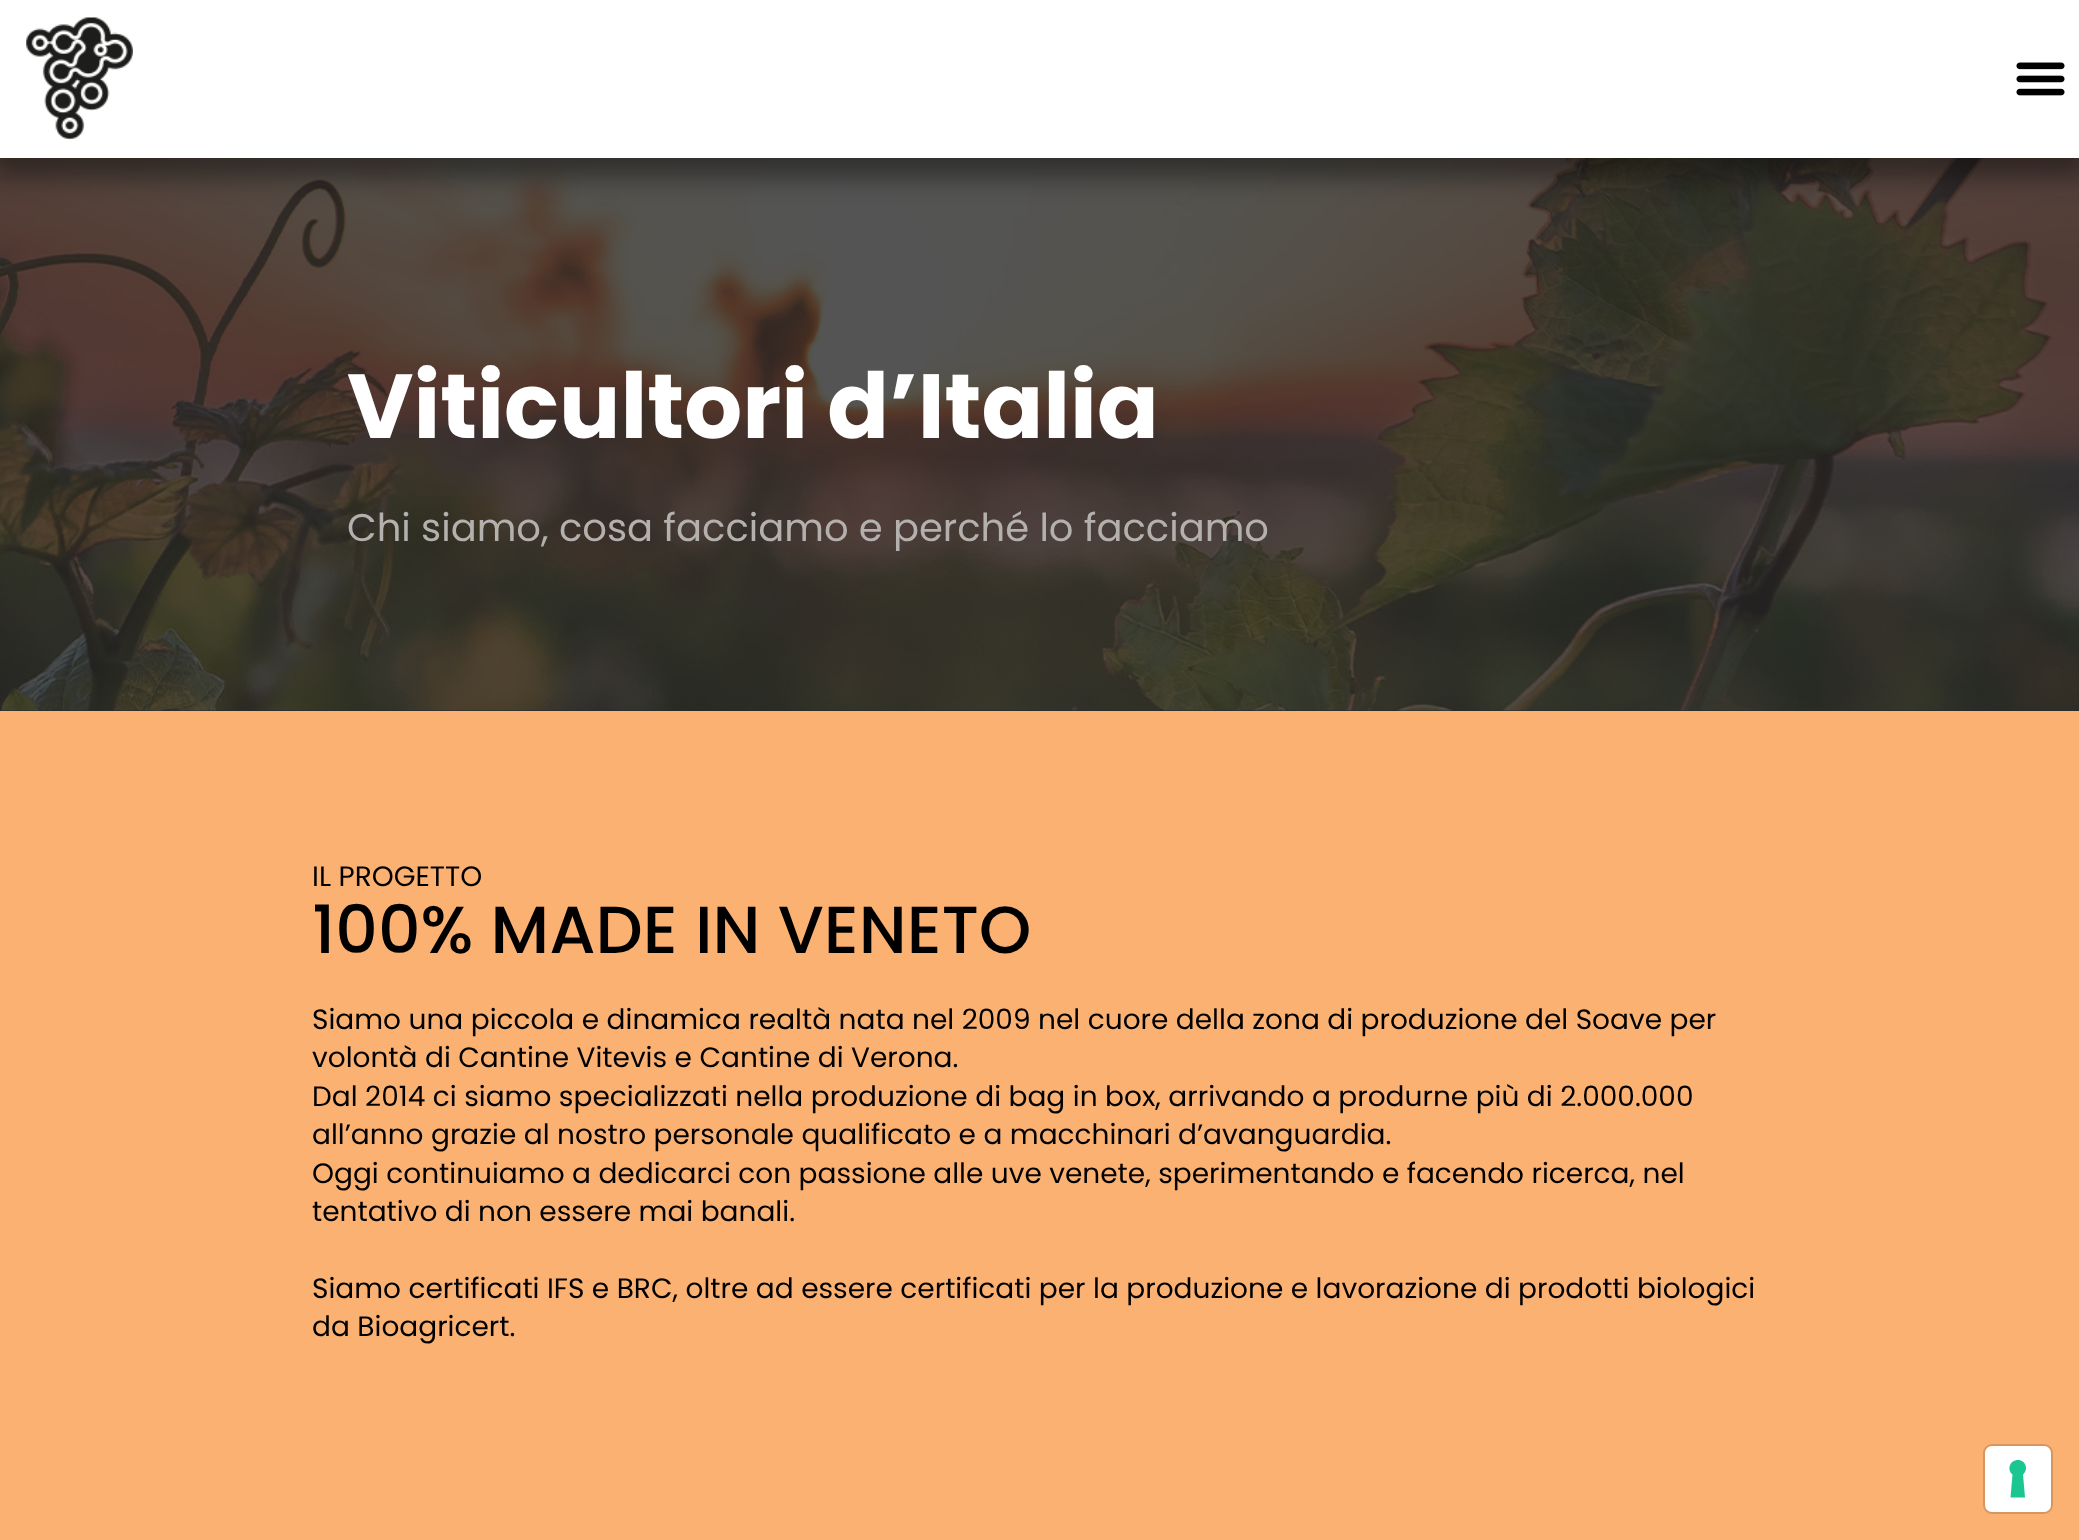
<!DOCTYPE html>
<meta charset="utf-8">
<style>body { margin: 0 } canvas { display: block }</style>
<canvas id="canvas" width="2079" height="1540"></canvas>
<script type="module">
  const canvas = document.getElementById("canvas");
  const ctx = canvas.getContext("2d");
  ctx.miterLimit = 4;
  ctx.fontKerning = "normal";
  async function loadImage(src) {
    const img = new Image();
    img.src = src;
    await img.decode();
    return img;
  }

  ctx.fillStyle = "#2a2a2a";
  ctx.fillRect(0, 0, 2079, 1540);
  ctx.drawImage(await loadImage("img3.png"), 0, 158, 2079, 553);
  ctx.fillStyle = "rgba(0, 0, 0, 0.42)";
  ctx.filter = "blur(13px)";
  ctx.beginPath();
  ctx.rect(-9, 2, 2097, 175);
  ctx.fill();
  ctx.filter = "none";
  ctx.fillStyle = "#ffffff";
  ctx.fillRect(0, 0, 2079, 158);
  ctx.drawImage(await loadImage("img1.png"), 26, 17, 107, 123);
  ctx.drawImage(await loadImage("img2.png"), 2016, 62, 49, 34);
  ctx.font = "bold 91px Poppins";
  ctx.fillText("Viticultori d’Italia", 347, 438);
  ctx.font = "38.5px Poppins";
  ctx.fillStyle = "#b4b0ad";
  ctx.fillText("Chi siamo, cosa facciamo e perché lo facciamo", 347, 541);
  ctx.fillStyle = "#fbb172";
  ctx.fillRect(0, 711, 2079, 829);
  ctx.font = "28px Poppins";
  ctx.fillStyle = "#000000";
  ctx.fillText("IL PROGETTO", 312, 886);
  ctx.font = "500 66.5px Poppins";
  ctx.fillText("100% MADE IN VENETO", 312, 953);
  ctx.font = "28px Poppins";
  ctx.fillText("Siamo una piccola e dinamica realtà nata nel 2009 nel cuore della zona di produzione del Soave per", 312, 1029);
  ctx.fillText("volontà di Cantine Vitevis e Cantine di Verona.", 312, 1067);
  ctx.fillText("Dal 2014 ci siamo specializzati nella produzione di bag in box, arrivando a produrne più di 2.000.000", 312, 1106);
  ctx.fillText("all’anno grazie al nostro personale qualificato e a macchinari d’avanguardia.", 312, 1144);
  ctx.fillText("Oggi continuiamo a dedicarci con passione alle uve venete, sperimentando e facendo ricerca, nel", 312, 1183);
  ctx.fillText("tentativo di non essere mai banali.", 312, 1221);
  ctx.fillText("Siamo certificati IFS e BRC, oltre ad essere certificati per la produzione e lavorazione di prodotti biologici", 312, 1298);
  ctx.fillText("da Bioagricert.", 312, 1336);
  ctx.beginPath();
  ctx.roundRect(1984, 1445, 68, 68, 8);
  ctx.strokeStyle = "#d59661";
  ctx.lineWidth = 2;
  ctx.stroke();
  ctx.fillStyle = "#ffffff";
  ctx.beginPath();
  ctx.roundRect(1985, 1446, 66, 66, 7);
  ctx.fill();
  ctx.fillStyle = "#1cc691";
  ctx.beginPath();
  ctx.moveTo(2018, 1460);
  ctx.bezierCurveTo(2025.5, 1460, 2029, 1469.5, 2023, 1474.5);
  ctx.lineTo(2025, 1497.5);
  ctx.lineTo(2010.5, 1497.5);
  ctx.lineTo(2012.5, 1474.5);
  ctx.bezierCurveTo(2006.5, 1469.5, 2010, 1460, 2018, 1460);
  ctx.closePath();
  ctx.fill("evenodd");
</script>
